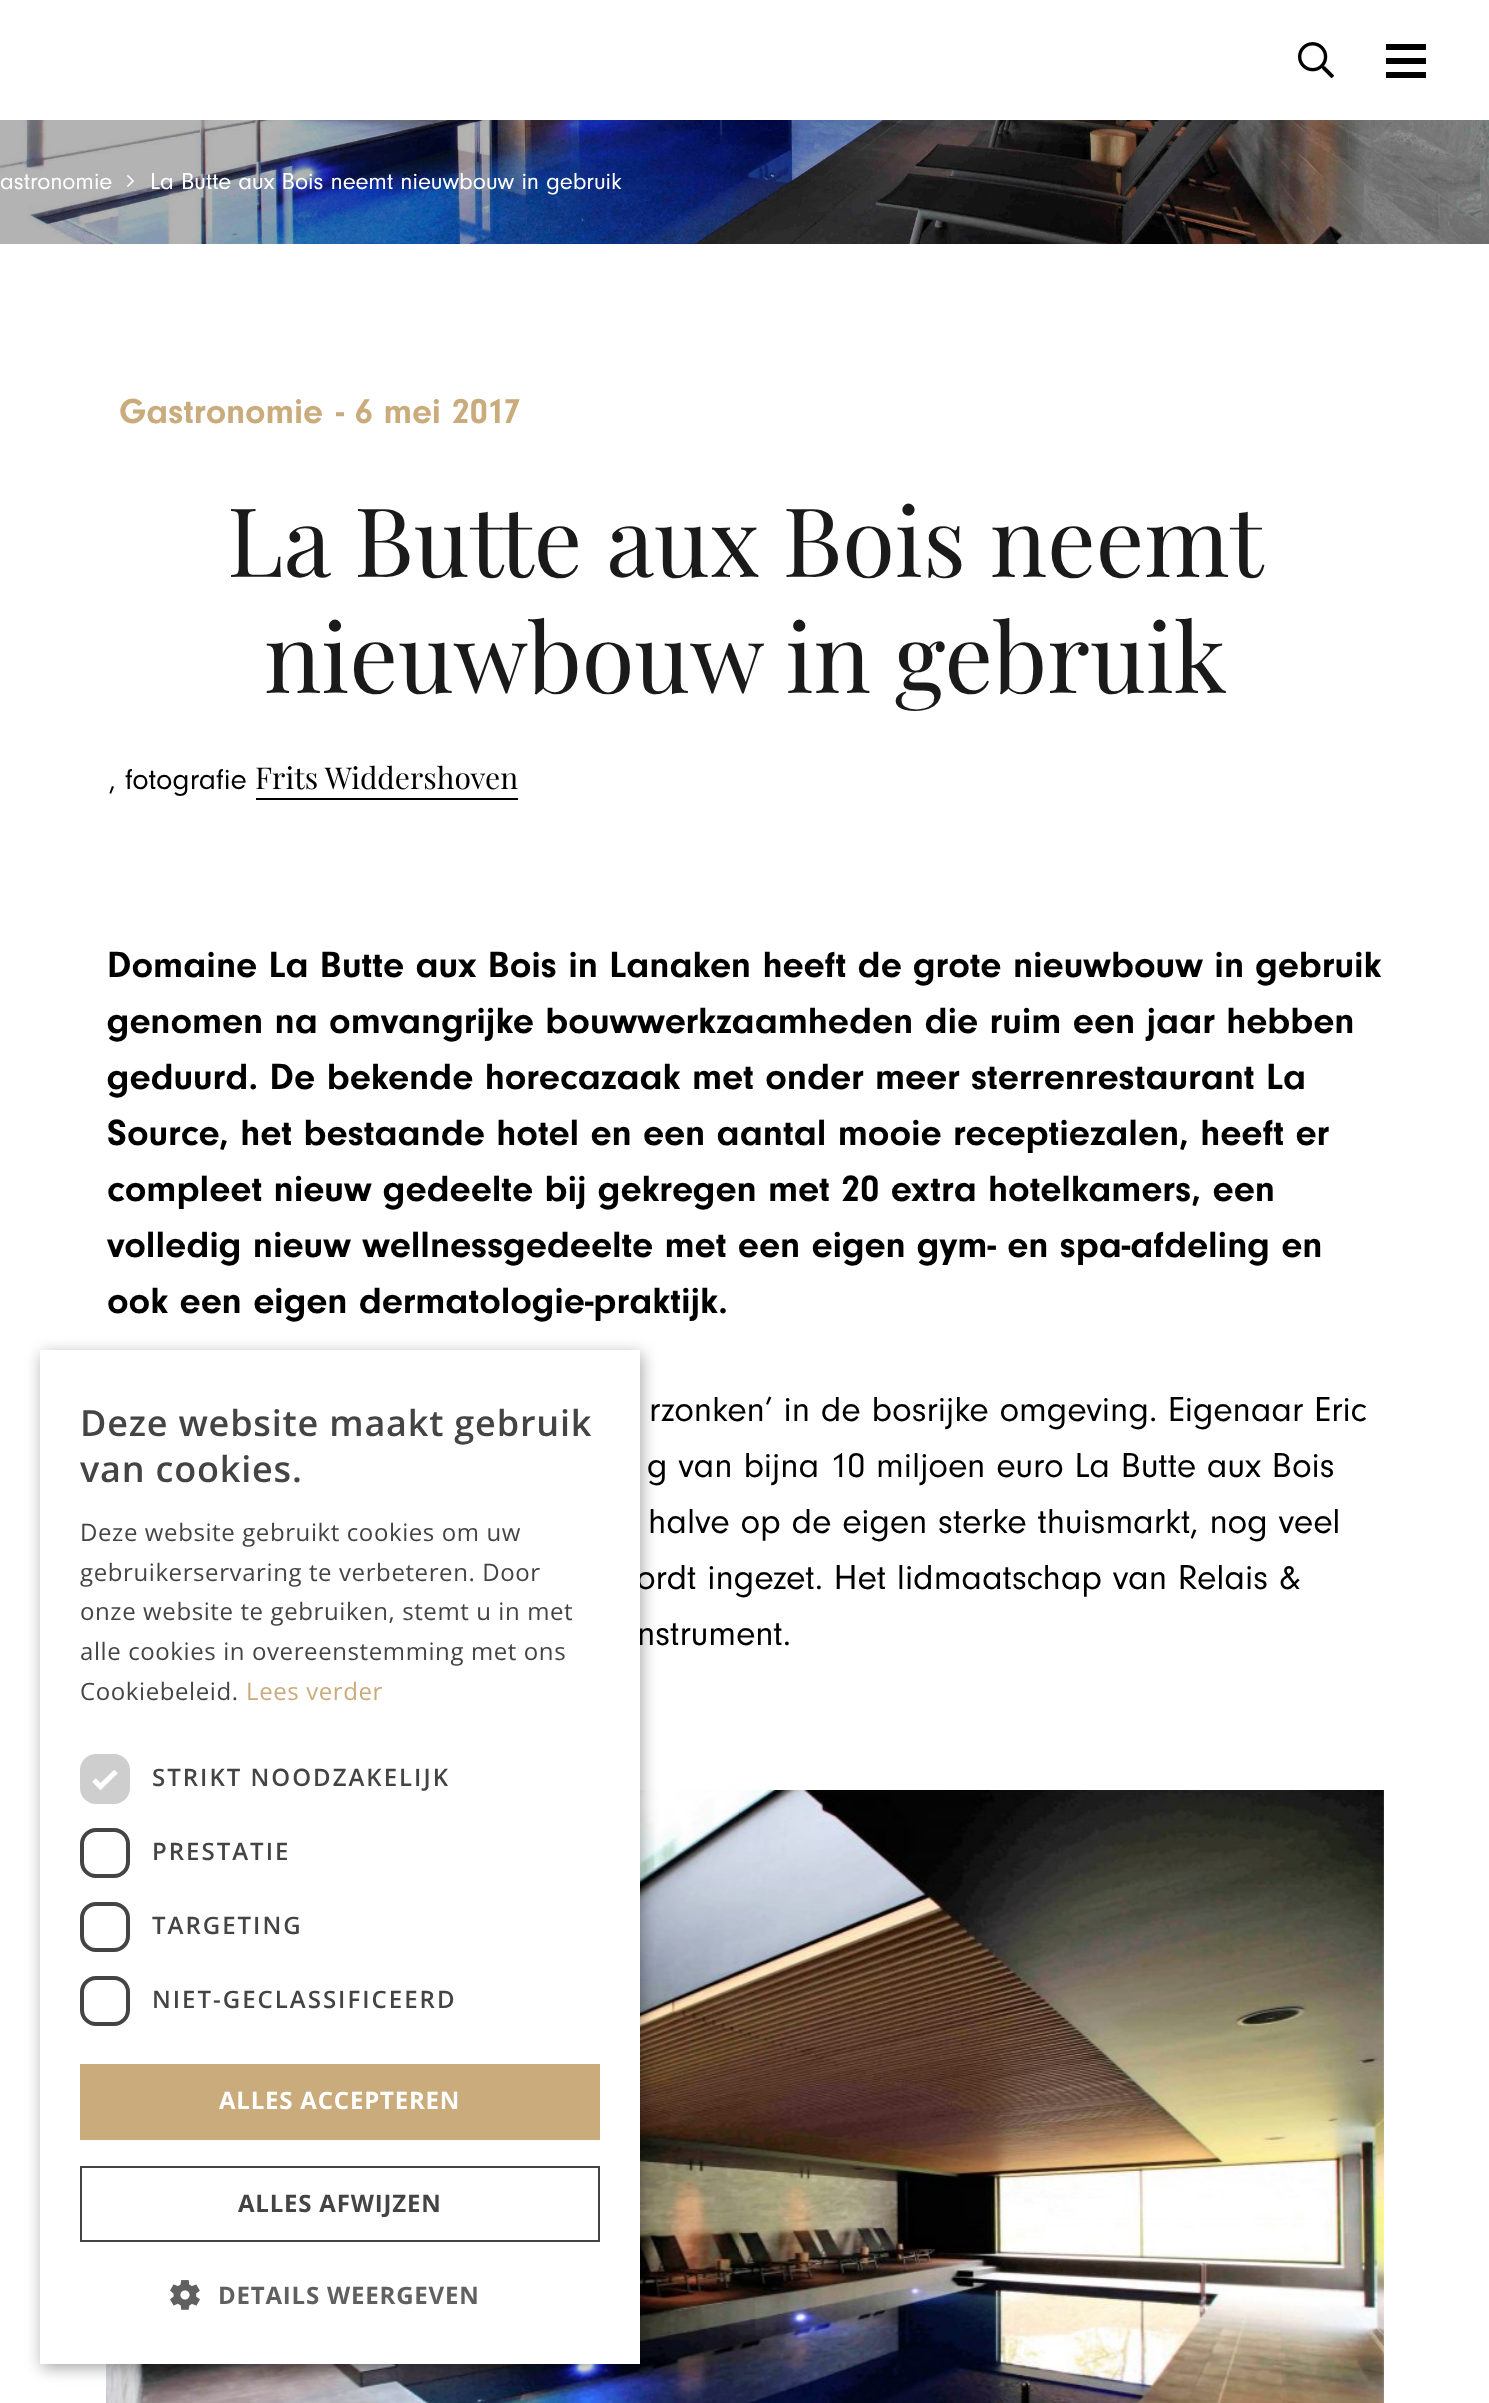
<!DOCTYPE html>
<meta charset="utf-8">
<style>body { margin: 0 } canvas { display: block }</style>
<canvas id="canvas" width="1489" height="2403"></canvas>
<script type="module">
  const canvas = document.getElementById("canvas");
  const ctx = canvas.getContext("2d");
  ctx.miterLimit = 4;
  ctx.fontKerning = "normal";
  async function loadImage(src) {
    const img = new Image();
    img.src = src;
    await img.decode();
    return img;
  }

  ctx.fillStyle = "#ffffff";
  ctx.fillRect(0, 0, 1489, 2403);
  ctx.drawImage(await loadImage("img1.png"), 1298, 42, 36, 37);
  ctx.fillStyle = "#000000";
  ctx.fillRect(1386, 58, 40, 6);
  ctx.fillRect(1386, 44, 40, 6);
  ctx.fillRect(1386, 72, 40, 6);
  ctx.drawImage(await loadImage("img2.png"), 0, 120, 1489, 124);
  ctx.font = "24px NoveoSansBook";
  ctx.fillStyle = "#ffffff";
  ctx.fillText("astronomie", 0, 189);
  ctx.drawImage(await loadImage("img3.png"), 127, 175, 7, 12);
  ctx.fillText("La Butte aux Bois neemt nieuwbouw in gebruik", 150, 189);
  ctx.font = "bold 36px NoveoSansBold";
  ctx.fillStyle = "#c9ab7c";
  ctx.fillText("Gastronomie", 119, 423);
  ctx.fillText("- 6 mei 2017", 336, 423);
  ctx.font = "96px Playfair Display";
  ctx.fillStyle = "#1a1a1a";
  ctx.fillText("La Butte aux Bois neemt", 227, 577);
  ctx.fillText("nieuwbouw in gebruik", 264, 693);
  ctx.font = "30px NoveoSansBook";
  ctx.fillStyle = "#000000";
  ctx.fillText(", fotografie", 109, 789);
  ctx.font = "30px Playfair Display";
  ctx.fillText("Frits Widdershoven", 255, 789);
  ctx.fillRect(256, 798, 262, 2);
  ctx.font = "bold 38px NoveoSansBold";
  ctx.fillText("Domaine La Butte aux Bois in Lanaken heeft de grote nieuwbouw in gebruik", 107, 977);
  ctx.fillText("genomen na omvangrijke bouwwerkzaamheden die ruim een jaar hebben", 107, 1033);
  ctx.fillText("geduurd. De bekende horecazaak met onder meer sterrenrestaurant La", 107, 1089);
  ctx.fillText("Source, het bestaande hotel en een aantal mooie receptiezalen, heeft er", 107, 1145);
  ctx.fillText("compleet nieuw gedeelte bij gekregen met 20 extra hotelkamers, een", 107, 1201);
  ctx.fillText("volledig nieuw wellnessgedeelte met een eigen gym- en spa-afdeling en", 107, 1257);
  ctx.fillText("ook een eigen dermatologie-praktijk.", 107, 1313);
  ctx.font = "36px NoveoSansBook";
  ctx.fillText("rzonken’ in de bosrijke omgeving. Eigenaar Eric", 649, 1421);
  ctx.fillText("g van bijna 10 miljoen euro La Butte aux Bois", 647, 1477);
  ctx.fillText("halve op de eigen sterke thuismarkt, nog veel", 648, 1533);
  ctx.fillText("ordt ingezet. Het lidmaatschap van Relais &", 636, 1589);
  ctx.fillText("nstrument.", 637, 1645);
  ctx.drawImage(await loadImage("img4.png"), 106, 1790, 1278, 613);
  ctx.fillStyle = "#ffffff";
  ctx.beginPath();
  ctx.moveTo(1330, 2215);
  ctx.lineTo(1304, 2241);
  ctx.bezierCurveTo(1300, 2246, 1299, 2250, 1294, 2245);
  ctx.lineTo(1290, 2241);
  ctx.lineTo(1291, 2239);
  ctx.lineTo(1316, 2214);
  ctx.lineTo(1291, 2188);
  ctx.bezierCurveTo(1290, 2187, 1290, 2186, 1291, 2185);
  ctx.lineTo(1295, 2181);
  ctx.bezierCurveTo(1296, 2179, 1298, 2179, 1299, 2181);
  ctx.lineTo(1330, 2212);
  ctx.bezierCurveTo(1331, 2213, 1331, 2214, 1330, 2215);
  ctx.closePath();
  ctx.fill();
  ctx.fillStyle = "rgba(0, 0, 0, 0.35)";
  ctx.filter = "blur(8px)";
  ctx.beginPath();
  ctx.rect(42, 1354, 600, 1014);
  ctx.fill();
  ctx.filter = "none";
  ctx.fillStyle = "#ffffff";
  ctx.fillRect(40, 1350, 600, 1014);
  ctx.letterSpacing = "0.8px";
  ctx.font = "600 36px Open Sans";
  ctx.fillStyle = "#444444";
  ctx.fillText("Deze website maakt gebruik", 80, 1436);
  ctx.fillText("van cookies.", 80, 1482);
  ctx.letterSpacing = "0.6px";
  ctx.font = "24px Open Sans";
  ctx.fillText("Deze website gebruikt cookies om uw", 80, 1541);
  ctx.fillText("gebruikerservaring te verbeteren. Door", 80, 1581);
  ctx.fillText("onze website te gebruiken, stemt u in met", 80, 1620);
  ctx.fillText("alle cookies in overeenstemming met ons", 80, 1660);
  ctx.fillText("Cookiebeleid.", 80, 1700);
  ctx.fillStyle = "#c9ab7c";
  ctx.fillText("Lees verder", 246, 1700);
  ctx.fillStyle = "#cecece";
  ctx.beginPath();
  ctx.roundRect(80, 1754, 50, 50, 16);
  ctx.fill();
  ctx.beginPath();
  ctx.moveTo(94, 1780);
  ctx.lineTo(100.5, 1786.5);
  ctx.lineTo(116, 1771.5);
  ctx.strokeStyle = "#ffffff";
  ctx.lineWidth = 5.2;
  ctx.stroke();
  ctx.letterSpacing = "2px";
  ctx.font = "600 24px Open Sans";
  ctx.fillStyle = "#444444";
  ctx.fillText("STRIKT NOODZAKELIJK", 152, 1786);
  ctx.beginPath();
  ctx.roundRect(82, 1830, 46, 46, 14);
  ctx.strokeStyle = "#444444";
  ctx.lineWidth = 4;
  ctx.stroke();
  ctx.fillText("PRESTATIE", 152, 1860);
  ctx.beginPath();
  ctx.roundRect(82, 1904, 46, 46, 14);
  ctx.stroke();
  ctx.fillText("TARGETING", 152, 1934);
  ctx.beginPath();
  ctx.roundRect(82, 1978, 46, 46, 14);
  ctx.stroke();
  ctx.fillText("NIET-GECLASSIFICEERD", 152, 2008);
  ctx.fillStyle = "#c9ab7c";
  ctx.fillRect(80, 2064, 520, 76);
  ctx.letterSpacing = "0.8px";
  ctx.font = "bold 24px Open Sans";
  ctx.fillStyle = "#ffffff";
  ctx.fillText("ALLES ACCEPTEREN", 219, 2109);
  ctx.lineWidth = 2;
  ctx.strokeRect(81, 2167, 518, 74);
  ctx.fillStyle = "#444444";
  ctx.fillText("ALLES AFWIJZEN", 238, 2212);
  ctx.drawImage(await loadImage("img5.png"), 170, 2280, 30, 30);
  ctx.fillStyle = "#606060";
  ctx.fillText("DETAILS WEERGEVEN", 218, 2304);
</script>
